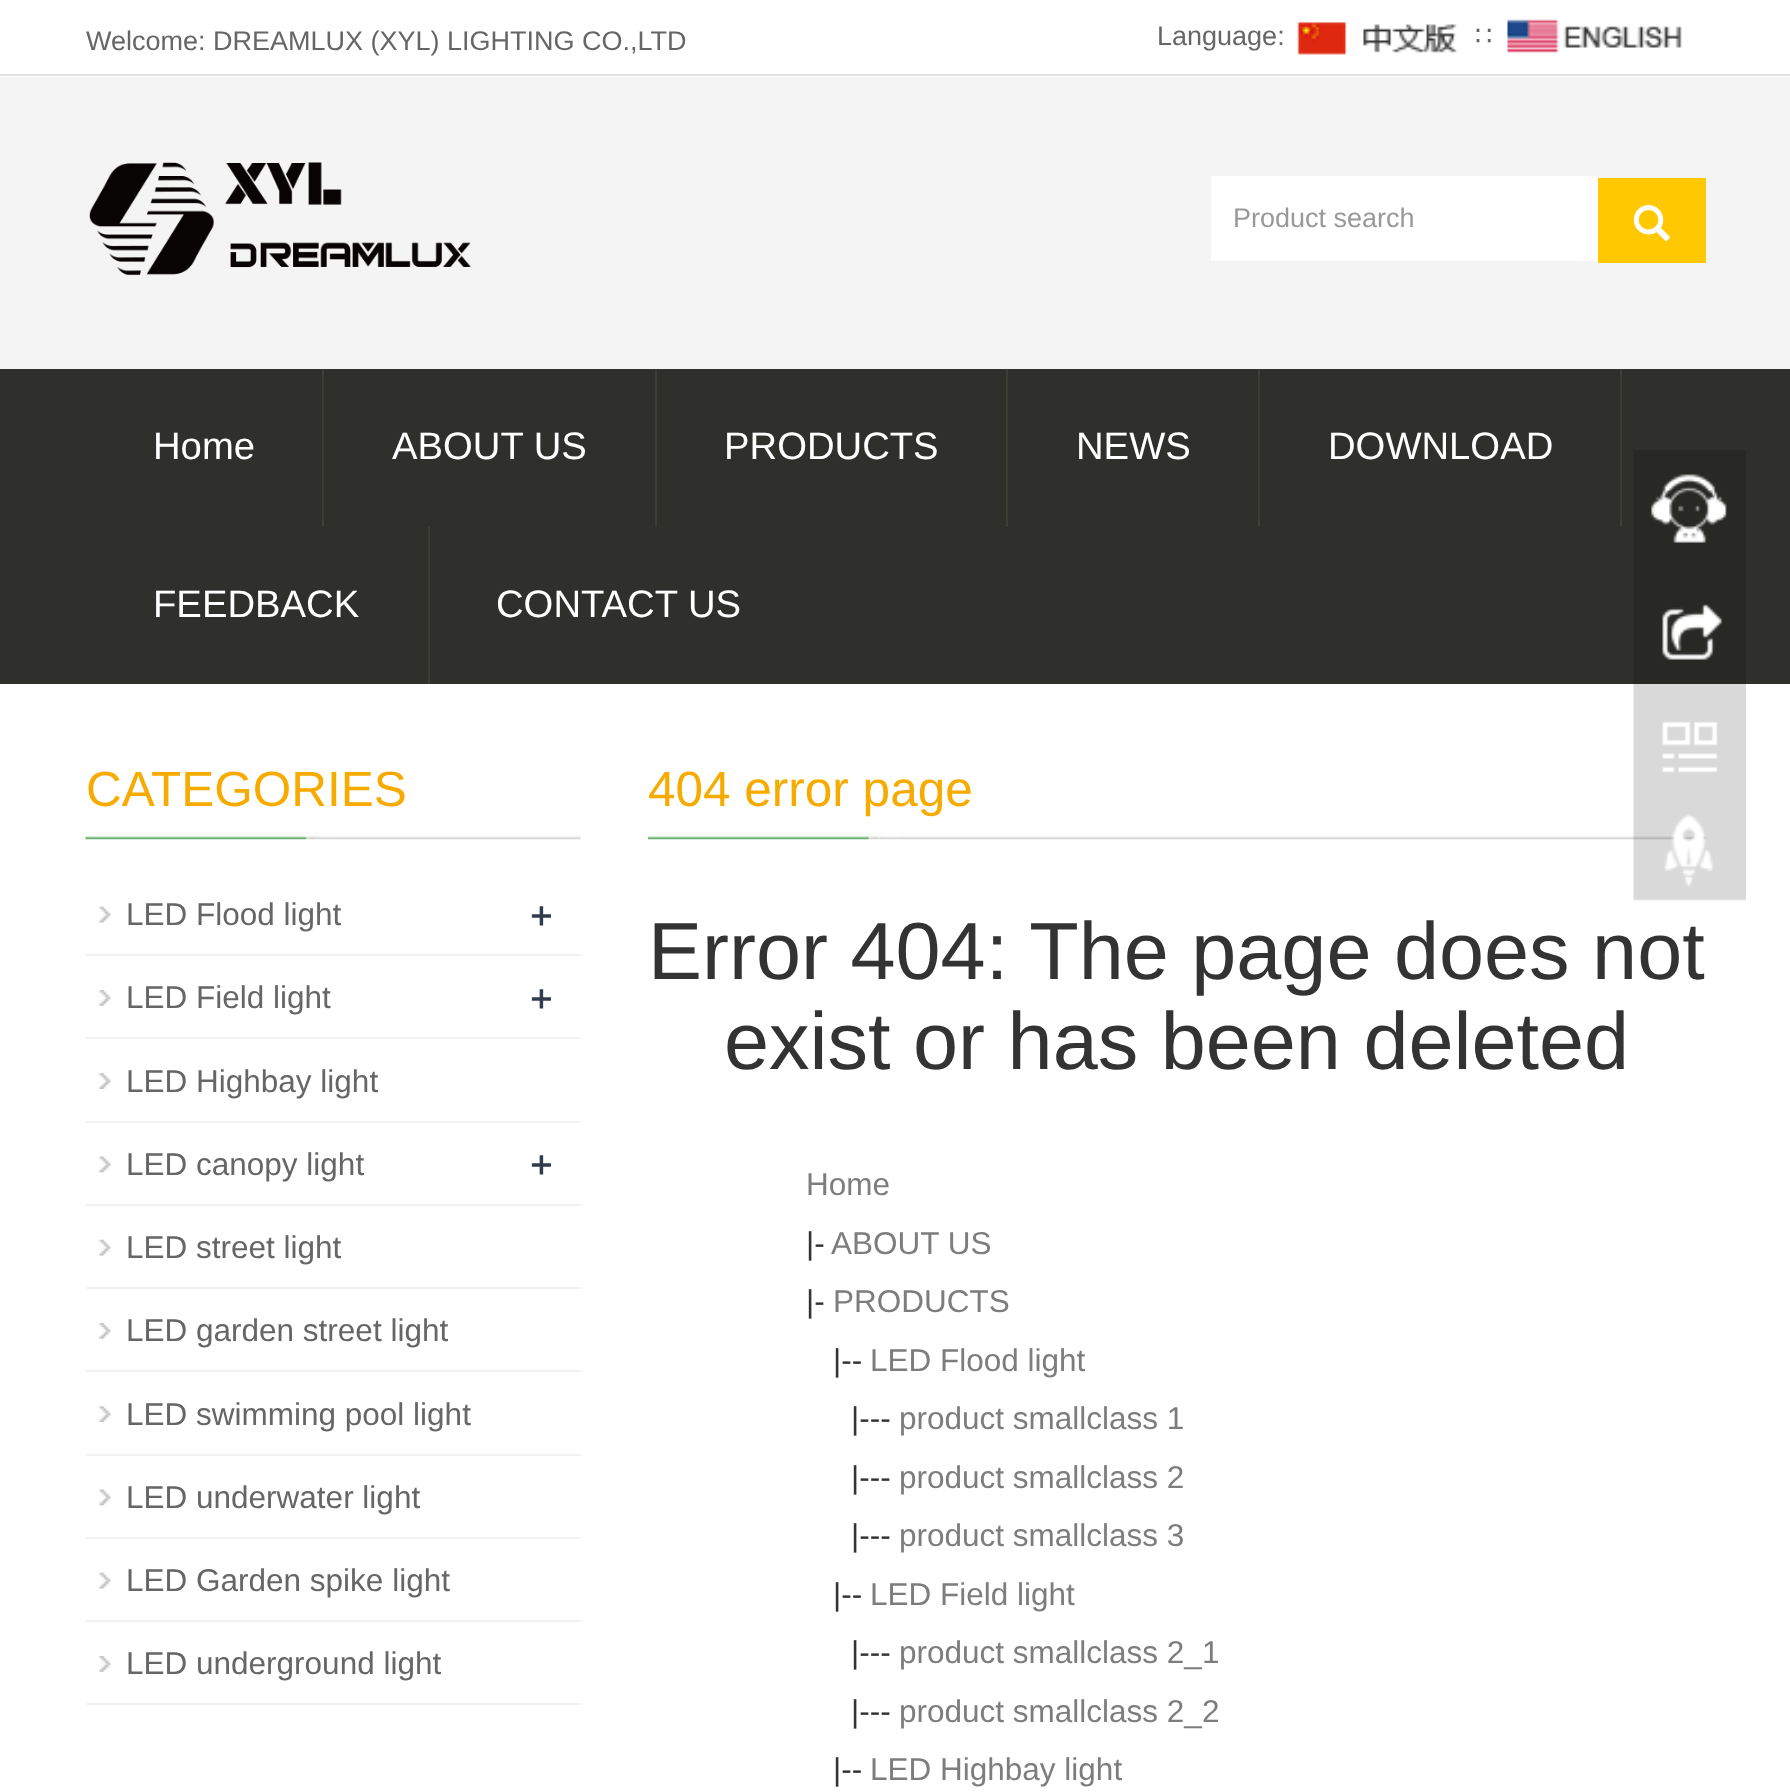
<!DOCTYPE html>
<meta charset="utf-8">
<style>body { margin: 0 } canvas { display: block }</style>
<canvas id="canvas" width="1790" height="1792"></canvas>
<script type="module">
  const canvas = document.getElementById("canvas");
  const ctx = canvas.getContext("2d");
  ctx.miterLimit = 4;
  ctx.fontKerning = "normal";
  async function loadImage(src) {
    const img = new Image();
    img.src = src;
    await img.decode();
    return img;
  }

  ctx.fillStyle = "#ffffff";
  ctx.fillRect(0, 0, 1790, 1792);
  ctx.fillStyle = "#f4f4f4";
  ctx.fillRect(0, 77, 1790, 292);
  ctx.fillStyle = "#e2e0e0";
  ctx.fillRect(0, 74, 1790, 2);
  ctx.font = "27px Liberation Sans";
  ctx.fillStyle = "#666666";
  ctx.fillText("Welcome: DREAMLUX (XYL) LIGHTING CO.,LTD", 86, 50);
  ctx.fillText("Language:", 1157, 45);
  ctx.drawImage(await loadImage("img1.png"), 1297, 22, 160, 33);
  ctx.font = "27px DejaVu Sans";
  ctx.fillText("∷", 1475, 45);
  ctx.drawImage(await loadImage("img2.png"), 1507, 19, 175, 34);
  ctx.drawImage(await loadImage("img3.png"), 89, 162, 382, 114);
  ctx.fillStyle = "#ffffff";
  ctx.fillRect(1211, 176, 387, 85);
  ctx.font = "27px Liberation Sans";
  ctx.fillStyle = "#999999";
  ctx.fillText("Product search", 1233, 227);
  ctx.fillStyle = "#ffc800";
  ctx.fillRect(1598, 178, 108, 85);
  ctx.drawImage(await loadImage("img4.png"), 1633, 205, 37, 36);
  ctx.fillStyle = "#2f2f2c";
  ctx.fillRect(0, 369, 1790, 315);
  ctx.fillStyle = "#3e3e34";
  ctx.fillRect(322, 369, 2, 158);
  ctx.font = "38.25px Liberation Sans";
  ctx.fillStyle = "#ffffff";
  ctx.fillText("Home", 153, 459);
  ctx.fillStyle = "#3e3e34";
  ctx.fillRect(655, 369, 2, 158);
  ctx.fillStyle = "#ffffff";
  ctx.fillText("ABOUT US", 392, 459);
  ctx.fillStyle = "#3e3e34";
  ctx.fillRect(1006, 369, 2, 158);
  ctx.fillStyle = "#ffffff";
  ctx.fillText("PRODUCTS", 724, 459);
  ctx.fillStyle = "#3e3e34";
  ctx.fillRect(1258, 369, 2, 158);
  ctx.fillStyle = "#ffffff";
  ctx.fillText("NEWS", 1076, 459);
  ctx.fillStyle = "#3e3e34";
  ctx.fillRect(1620, 369, 2, 158);
  ctx.fillStyle = "#ffffff";
  ctx.fillText("DOWNLOAD", 1328, 459);
  ctx.fillStyle = "#3e3e34";
  ctx.fillRect(428, 527, 2, 157);
  ctx.fillStyle = "#ffffff";
  ctx.fillText("FEEDBACK", 153, 617);
  ctx.fillText("CONTACT US", 496, 617);
  ctx.drawImage(await loadImage("img13.png"), 648, 832, 1058, 8);
  ctx.drawImage(await loadImage("img5.png"), 1633, 450, 113, 451);
  ctx.drawImage(await loadImage("img6.png"), 85, 832, 496, 8);
  ctx.font = "49.5px Liberation Sans";
  ctx.fillStyle = "#f7ab00";
  ctx.fillText("CATEGORIES", 86, 806);
  ctx.drawImage(await loadImage("img7.png"), 99, 906, 12, 17);
  ctx.fillStyle = "#f2f2f2";
  ctx.fillRect(86, 954, 495, 2);
  ctx.font = "31.5px Liberation Sans";
  ctx.fillStyle = "#666666";
  ctx.fillText("LED Flood light", 126, 925);
  ctx.font = "600 40px Open Sans";
  ctx.fillStyle = "#303c4b";
  ctx.fillText("+", 530, 930);
  ctx.drawImage(await loadImage("img8.png"), 99, 990, 12, 16);
  ctx.fillStyle = "#f2f2f2";
  ctx.fillRect(86, 1037, 495, 2);
  ctx.font = "31.5px Liberation Sans";
  ctx.fillStyle = "#666666";
  ctx.fillText("LED Field light", 126, 1008);
  ctx.font = "600 40px Open Sans";
  ctx.fillStyle = "#303c4b";
  ctx.fillText("+", 530, 1013);
  ctx.drawImage(await loadImage("img9.png"), 99, 1073, 12, 16);
  ctx.fillStyle = "#f2f2f2";
  ctx.fillRect(86, 1121, 495, 2);
  ctx.font = "31.5px Liberation Sans";
  ctx.fillStyle = "#666666";
  ctx.fillText("LED Highbay light", 126, 1092);
  ctx.drawImage(await loadImage("img10.png"), 99, 1156, 12, 17);
  ctx.fillStyle = "#f2f2f2";
  ctx.fillRect(86, 1204, 495, 2);
  ctx.fillStyle = "#666666";
  ctx.fillText("LED canopy light", 126, 1175);
  ctx.font = "600 40px Open Sans";
  ctx.fillStyle = "#303c4b";
  ctx.fillText("+", 530, 1179);
  ctx.drawImage(await loadImage("img7.png"), 99, 1239, 12, 17);
  ctx.fillStyle = "#f2f2f2";
  ctx.fillRect(86, 1287, 495, 2);
  ctx.font = "31.5px Liberation Sans";
  ctx.fillStyle = "#666666";
  ctx.fillText("LED street light", 126, 1258);
  ctx.drawImage(await loadImage("img8.png"), 99, 1323, 12, 16);
  ctx.fillStyle = "#f2f2f2";
  ctx.fillRect(86, 1370, 495, 2);
  ctx.fillStyle = "#666666";
  ctx.fillText("LED garden street light", 126, 1341);
  ctx.drawImage(await loadImage("img9.png"), 99, 1406, 12, 16);
  ctx.fillStyle = "#f2f2f2";
  ctx.fillRect(86, 1454, 495, 2);
  ctx.fillStyle = "#666666";
  ctx.fillText("LED swimming pool light", 126, 1425);
  ctx.drawImage(await loadImage("img11.png"), 99, 1489, 12, 17);
  ctx.fillStyle = "#f2f2f2";
  ctx.fillRect(86, 1537, 495, 2);
  ctx.fillStyle = "#666666";
  ctx.fillText("LED underwater light", 126, 1508);
  ctx.drawImage(await loadImage("img7.png"), 99, 1572, 12, 17);
  ctx.fillStyle = "#f2f2f2";
  ctx.fillRect(86, 1620, 495, 2);
  ctx.fillStyle = "#666666";
  ctx.fillText("LED Garden spike light", 126, 1591);
  ctx.drawImage(await loadImage("img12.png"), 99, 1656, 12, 16);
  ctx.fillStyle = "#f2f2f2";
  ctx.fillRect(86, 1703, 495, 2);
  ctx.fillStyle = "#666666";
  ctx.fillText("LED underground light", 126, 1674);
  ctx.font = "49.5px Liberation Sans";
  ctx.fillStyle = "#f7ab00";
  ctx.fillText("404 error page", 648, 806);
  ctx.font = "81px Liberation Sans";
  ctx.fillStyle = "#333333";
  ctx.fillText("Error 404: The page does not", 648, 979);
  ctx.fillText("exist or has been deleted", 724, 1069);
  ctx.font = "31.5px Liberation Sans";
  ctx.fillStyle = "#7d7d7d";
  ctx.fillText("Home", 806, 1195);
  ctx.fillStyle = "#333333";
  ctx.fillText("|-", 806, 1254);
  ctx.fillStyle = "#7d7d7d";
  ctx.fillText("ABOUT US", 831, 1254);
  ctx.fillStyle = "#333333";
  ctx.fillText("|-", 806, 1312);
  ctx.fillStyle = "#7d7d7d";
  ctx.fillText("PRODUCTS", 833, 1312);
  ctx.fillStyle = "#333333";
  ctx.fillText("|--", 833, 1371);
  ctx.fillStyle = "#7d7d7d";
  ctx.fillText("LED Flood light", 870, 1371);
  ctx.fillStyle = "#333333";
  ctx.fillText("|---", 851, 1429);
  ctx.fillStyle = "#7d7d7d";
  ctx.fillText("product smallclass 1", 899, 1429);
  ctx.fillStyle = "#333333";
  ctx.fillText("|---", 851, 1488);
  ctx.fillStyle = "#7d7d7d";
  ctx.fillText("product smallclass 2", 899, 1488);
  ctx.fillStyle = "#333333";
  ctx.fillText("|---", 851, 1546);
  ctx.fillStyle = "#7d7d7d";
  ctx.fillText("product smallclass 3", 899, 1546);
  ctx.fillStyle = "#333333";
  ctx.fillText("|--", 833, 1605);
  ctx.fillStyle = "#7d7d7d";
  ctx.fillText("LED Field light", 870, 1605);
  ctx.fillStyle = "#333333";
  ctx.fillText("|---", 851, 1663);
  ctx.fillStyle = "#7d7d7d";
  ctx.fillText("product smallclass 2_1", 899, 1663);
  ctx.fillStyle = "#333333";
  ctx.fillText("|---", 851, 1722);
  ctx.fillStyle = "#7d7d7d";
  ctx.fillText("product smallclass 2_2", 899, 1722);
  ctx.fillStyle = "#333333";
  ctx.fillText("|--", 833, 1780);
  ctx.fillStyle = "#7d7d7d";
  ctx.fillText("LED Highbay light", 870, 1780);
</script>
